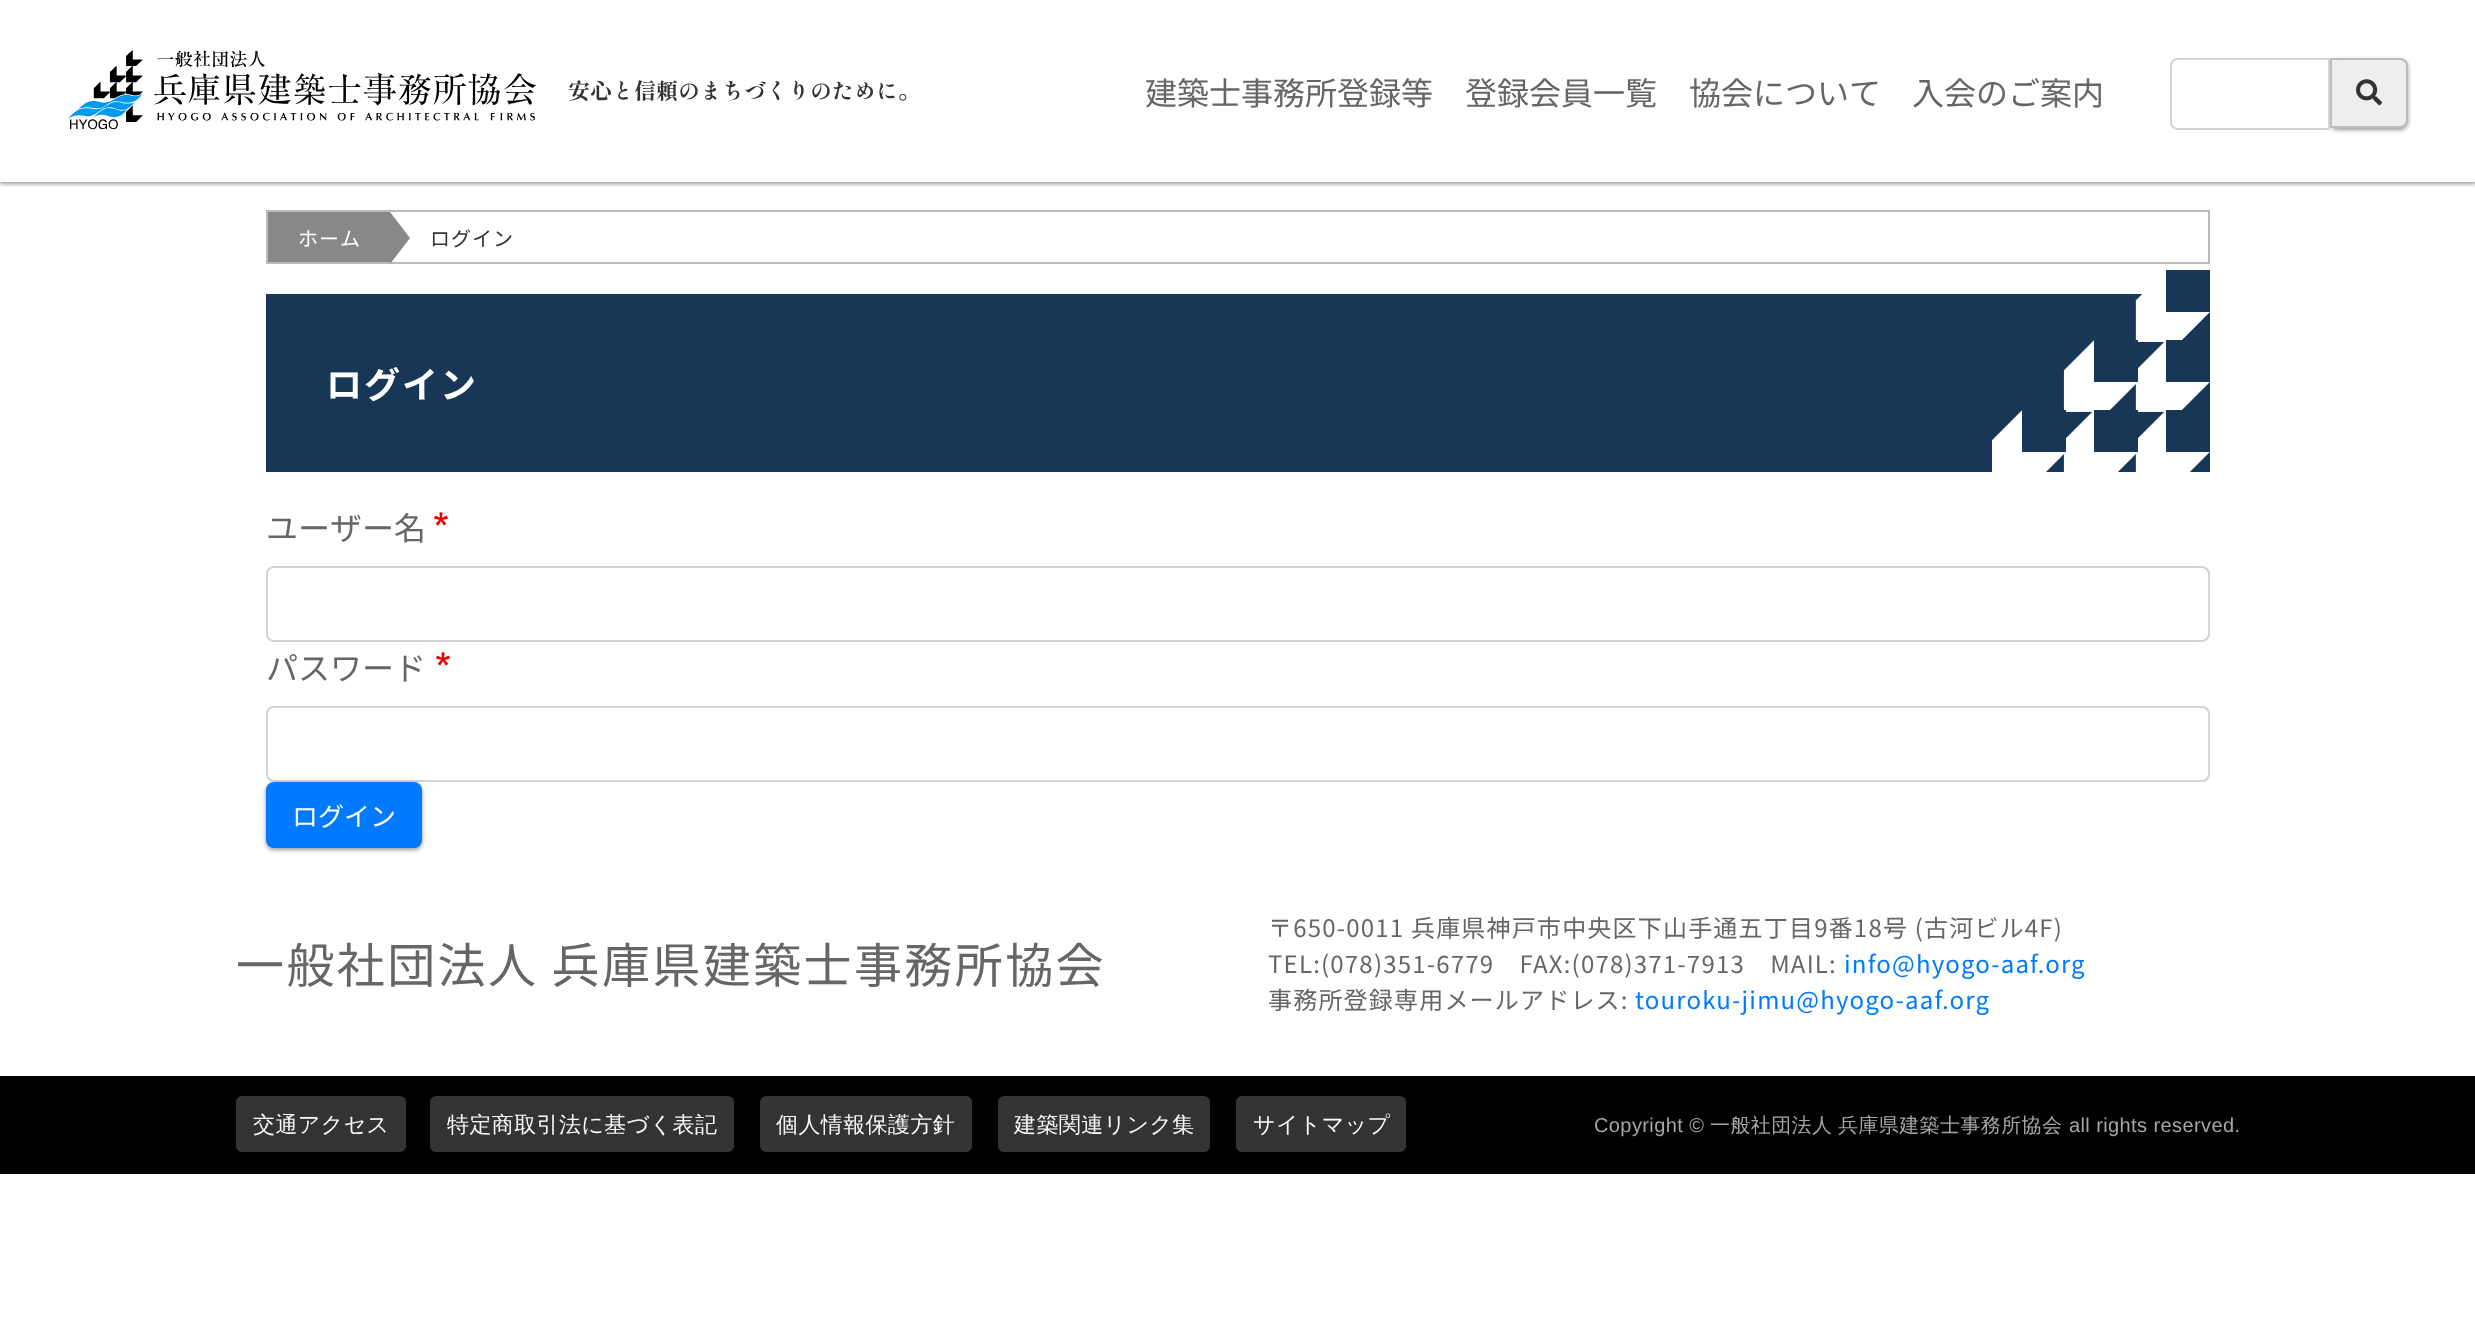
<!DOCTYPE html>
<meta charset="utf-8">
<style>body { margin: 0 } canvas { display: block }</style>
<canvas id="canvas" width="2475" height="1326"></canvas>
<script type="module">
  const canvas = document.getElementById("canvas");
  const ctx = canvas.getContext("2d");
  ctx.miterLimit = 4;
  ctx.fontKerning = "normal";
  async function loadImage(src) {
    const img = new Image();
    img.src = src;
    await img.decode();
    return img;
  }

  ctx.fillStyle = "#ffffff";
  ctx.fillRect(0, 0, 2475, 1326);
  ctx.save();
  ctx.beginPath();
  ctx.rect(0, 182, 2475, 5);
  ctx.clip();
  ctx.fillStyle = "rgba(51, 51, 51, 0.5)";
  ctx.filter = "blur(2px)";
  ctx.beginPath();
  ctx.rect(0, 2, 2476, 182);
  ctx.fill();
  ctx.filter = "none";
  ctx.restore();
  ctx.drawImage(await loadImage("img1.png"), 68, 50, 468, 80);
  ctx.font = "bold 22px 'Shippori Mincho B1'";
  ctx.fillStyle = "#333333";
  ctx.fillText("安心と信頼のまちづくりのために。", 568, 99);
  ctx.font = "32px Noto Sans JP";
  ctx.fillStyle = "#666666";
  ctx.fillText("建築士事務所登録等", 1145, 105);
  ctx.fillText("登録会員一覧", 1465, 105);
  ctx.fillText("協会について", 1689, 105);
  ctx.fillText("入会のご案内", 1912, 105);
  ctx.fillStyle = "rgba(51, 51, 51, 0.5)";
  ctx.filter = "blur(2px)";
  ctx.beginPath();
  ctx.roundRect(2330, 60, 78, 70, 8);
  ctx.fill();
  ctx.filter = "none";
  ctx.fillStyle = "#ffffff";
  ctx.beginPath();
  ctx.roundRect(2171, 59, 158, 70, [7, 0, 0, 7]);
  ctx.fill();
  ctx.strokeStyle = "#ced4da";
  ctx.lineWidth = 2;
  ctx.stroke();
  ctx.fillStyle = "#eeeeee";
  ctx.beginPath();
  ctx.roundRect(2331, 59, 76, 68, [0, 7, 7, 0]);
  ctx.fill();
  ctx.strokeStyle = "#bbbbbb";
  ctx.stroke();
  ctx.drawImage(await loadImage("img2.png"), 2356, 79, 26, 27);
  ctx.strokeRect(267, 211, 1942, 52);
  ctx.fillStyle = "#888888";
  ctx.fillRect(268, 212, 122, 50);
  ctx.letterSpacing = "1px";
  ctx.font = "20px Noto Sans JP";
  ctx.fillStyle = "#ffffff";
  ctx.fillText("ホーム", 298, 246);
  ctx.fillStyle = "#888888";
  ctx.beginPath();
  ctx.moveTo(390, 264);
  ctx.lineTo(390, 212);
  ctx.lineTo(410, 238);
  ctx.closePath();
  ctx.fill();
  ctx.fillStyle = "#333333";
  ctx.fillText("ログイン", 430, 246);
  ctx.fillStyle = "#183756";
  ctx.fillRect(266, 294, 1944, 178);
  ctx.letterSpacing = "2px";
  ctx.font = "bold 36px Noto Sans JP";
  ctx.fillStyle = "#ffffff";
  ctx.fillText("ログイン", 326, 398);
  ctx.drawImage(await loadImage("img3.png"), 1992, 270, 218, 202);
  ctx.letterSpacing = "0px";
  ctx.font = "32px Noto Sans JP";
  ctx.fillStyle = "#666666";
  ctx.fillText("ユーザー名", 266, 540);
  ctx.drawImage(await loadImage("img4.png"), 434, 512, 14, 14);
  ctx.beginPath();
  ctx.roundRect(267, 567, 1942, 74, 7);
  ctx.strokeStyle = "#ced4da";
  ctx.stroke();
  ctx.fillText("パスワード", 266, 680);
  ctx.drawImage(await loadImage("img4.png"), 436, 652, 14, 14);
  ctx.beginPath();
  ctx.roundRect(267, 707, 1942, 74, 7);
  ctx.stroke();
  ctx.fillStyle = "rgba(51, 51, 51, 0.5)";
  ctx.filter = "blur(2px)";
  ctx.beginPath();
  ctx.roundRect(266, 784, 156, 66, 8);
  ctx.fill();
  ctx.filter = "none";
  ctx.fillStyle = "#007bff";
  ctx.beginPath();
  ctx.roundRect(267, 783, 154, 64, 7);
  ctx.fill();
  ctx.strokeStyle = "#007bff";
  ctx.stroke();
  ctx.font = "26px Noto Sans JP";
  ctx.fillStyle = "#ffffff";
  ctx.fillText("ログイン", 292, 826);
  ctx.letterSpacing = "2.4px";
  ctx.font = "48px Noto Sans JP";
  ctx.fillStyle = "#666666";
  ctx.fillText("一般社団法人 兵庫県建築士事務所協会", 236, 983);
  ctx.letterSpacing = "1.2px";
  ctx.font = "24px Noto Sans JP";
  ctx.fillText("〒650-0011 兵庫県神戸市中央区下山手通五丁目9番18号 (古河ビル4F)", 1268, 937);
  ctx.fillText("TEL:(078)351-6779　FAX:(078)371-7913　MAIL:", 1268, 973);
  ctx.fillStyle = "#007bff";
  ctx.fillText("info@hyogo-aaf.org", 1844, 973);
  ctx.fillStyle = "#666666";
  ctx.fillText("事務所登録専用メールアドレス:", 1268, 1009);
  ctx.fillStyle = "#007bff";
  ctx.fillText("touroku-jimu@hyogo-aaf.org", 1635, 1009);
  ctx.fillStyle = "#000000";
  ctx.fillRect(0, 1076, 2475, 98);
  ctx.fillStyle = "#333333";
  ctx.beginPath();
  ctx.roundRect(236, 1096, 170, 56, 6);
  ctx.fill();
  ctx.letterSpacing = "0.4px";
  ctx.font = "500 22px WenQuanYi Zen Hei";
  ctx.fillStyle = "#f9f9f9";
  ctx.fillText("交通アクセス", 253, 1132);
  ctx.fillStyle = "#333333";
  ctx.beginPath();
  ctx.roundRect(430, 1096, 304, 56, 6);
  ctx.fill();
  ctx.fillStyle = "#f9f9f9";
  ctx.fillText("特定商取引法に基づく表記", 447, 1132);
  ctx.fillStyle = "#333333";
  ctx.beginPath();
  ctx.roundRect(760, 1096, 212, 56, 6);
  ctx.fill();
  ctx.fillStyle = "#f9f9f9";
  ctx.fillText("個人情報保護方針", 776, 1132);
  ctx.fillStyle = "#333333";
  ctx.beginPath();
  ctx.roundRect(998, 1096, 212, 56, 6);
  ctx.fill();
  ctx.fillStyle = "#f9f9f9";
  ctx.fillText("建築関連リンク集", 1014, 1132);
  ctx.fillStyle = "#333333";
  ctx.beginPath();
  ctx.roundRect(1236, 1096, 170, 56, 6);
  ctx.fill();
  ctx.fillStyle = "#f9f9f9";
  ctx.fillText("サイトマップ", 1253, 1132);
  ctx.font = "20px Liberation Sans";
  ctx.fillStyle = "#a6a6a6";
  ctx.fillText("Copyright ©", 1594, 1132);
  ctx.font = "500 20px WenQuanYi Zen Hei";
  ctx.fillText("一般社団法人", 1710, 1132);
  ctx.fillText("兵庫県建築士事務所協会", 1838, 1132);
  ctx.font = "20px Liberation Sans";
  ctx.fillText("all rights reserved.", 2069, 1132);
</script>
